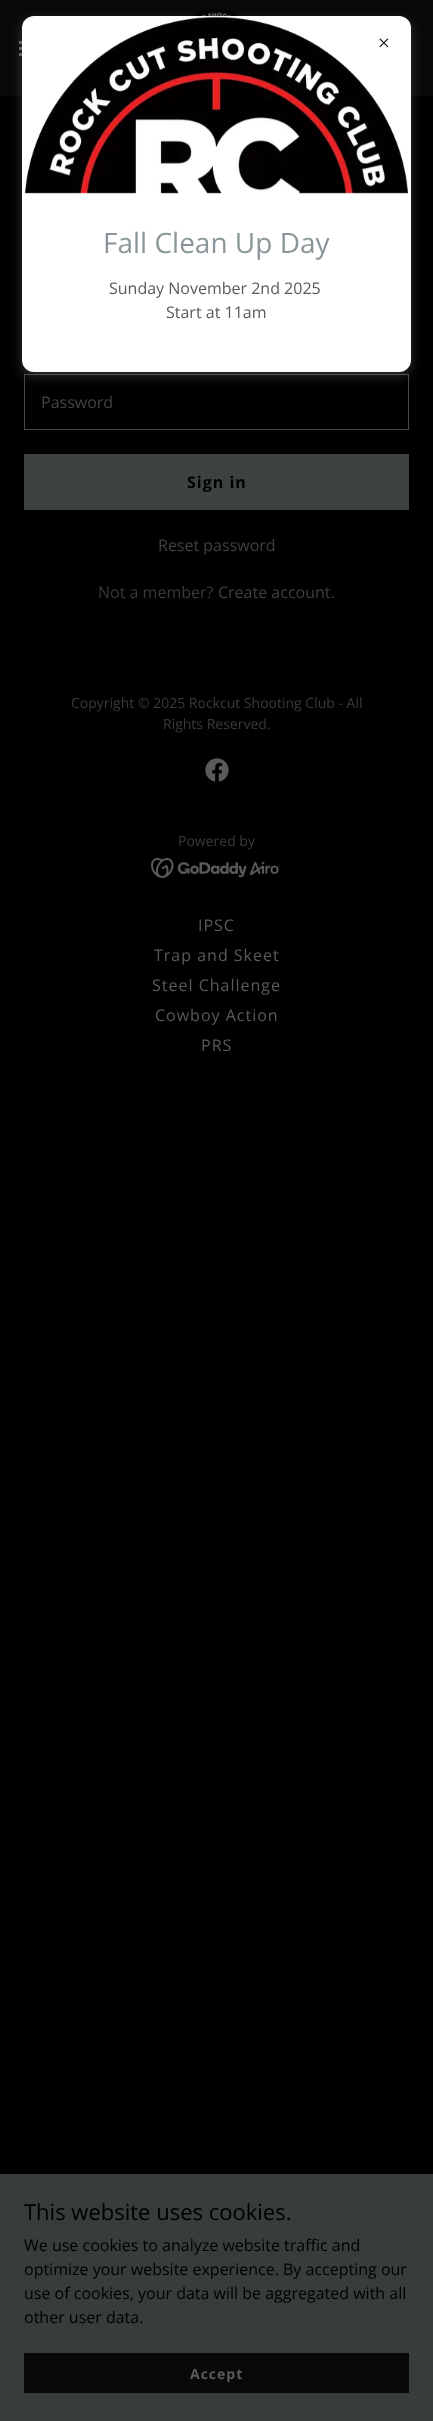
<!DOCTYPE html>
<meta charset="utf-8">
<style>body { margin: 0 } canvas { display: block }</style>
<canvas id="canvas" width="433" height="2421"></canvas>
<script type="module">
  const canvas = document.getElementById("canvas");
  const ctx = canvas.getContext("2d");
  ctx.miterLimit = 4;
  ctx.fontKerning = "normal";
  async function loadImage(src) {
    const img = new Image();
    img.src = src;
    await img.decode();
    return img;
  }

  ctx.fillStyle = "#000000";
  ctx.fillRect(0, 0, 433, 2421);
  ctx.fillStyle = "#090909";
  ctx.fillRect(0, 0, 433, 96);
  ctx.drawImage(await loadImage("img1.png"), 192, 8, 48, 8);
  ctx.fillStyle = "#636363";
  ctx.fillRect(19, 41, 3, 3);
  ctx.fillRect(19, 47, 3, 3);
  ctx.fillRect(19, 53, 3, 3);
  ctx.strokeStyle = "#484848";
  ctx.strokeRect(24.5, 374.5, 384, 55);
  ctx.fillStyle = "rgba(117, 117, 117, 0.4)";
  ctx.filter = "blur(6px)";
  ctx.beginPath();
  ctx.roundRect(22, 20, 389, 356, 12);
  ctx.fill();
  ctx.filter = "none";
  ctx.fillStyle = "#ffffff";
  ctx.beginPath();
  ctx.roundRect(22, 16, 389, 356, 12);
  ctx.fill();
  ctx.drawImage(await loadImage("img3.png"), 25, 16, 383, 178);
  ctx.drawImage(await loadImage("img2.png"), 379, 38, 10, 10);
  ctx.font = "28px Open Sans";
  ctx.fillStyle = "#8a9699";
  ctx.fillText("Fall Clean Up Day", 103, 253);
  ctx.font = "16px Open Sans";
  ctx.fillStyle = "#5a5a5a";
  ctx.fillText("Sunday November 2nd 2025", 109, 294);
  ctx.fillText("Start at 11am", 166, 318);
  ctx.fillStyle = "#444444";
  ctx.fillText("Password", 41, 408);
  ctx.fillStyle = "#3c4142";
  ctx.fillRect(24, 454, 385, 56);
  ctx.letterSpacing = "1px";
  ctx.font = "bold 16px Open Sans";
  ctx.fillStyle = "#000000";
  ctx.fillText("Sign in", 187, 488);
  ctx.letterSpacing = "0px";
  ctx.font = "16px Open Sans";
  ctx.fillStyle = "#3c4142";
  ctx.fillText("Reset password", 158, 551);
  ctx.fillStyle = "#3a3a3a";
  ctx.fillText("Not a member?", 98, 598);
  ctx.fillStyle = "#3c4142";
  ctx.fillText("Create account.", 218, 598);
  ctx.font = "14px Open Sans";
  ctx.fillStyle = "#3a3a3a";
  ctx.fillText("Copyright © 2025 Rockcut Shooting Club - All", 71, 708);
  ctx.fillText("Rights Reserved.", 163, 729);
  ctx.drawImage(await loadImage("img4.png"), 205, 758, 24, 24);
  ctx.fillText("Powered by", 178, 846);
  ctx.drawImage(await loadImage("img5.png"), 151, 858, 130, 20);
  ctx.letterSpacing = "1px";
  ctx.font = "16px Open Sans";
  ctx.fillStyle = "#5a5a5a";
  ctx.fillText("IPSC", 198, 931);
  ctx.fillText("Trap and Skeet", 154, 961);
  ctx.fillText("Steel Challenge", 152, 991);
  ctx.fillText("Cowboy Action", 155, 1021);
  ctx.fillText("PRS", 201, 1051);
  ctx.fillStyle = "#373c3c";
  ctx.fillRect(0, 2174, 433, 247);
  ctx.letterSpacing = "0px";
  ctx.font = "22px Open Sans";
  ctx.fillStyle = "#000000";
  ctx.fillText("This website uses cookies.", 24, 2220);
  ctx.font = "16px Open Sans";
  ctx.fillText("We use cookies to analyze website traffic and", 24, 2251);
  ctx.fillText("optimize your website experience. By accepting our", 24, 2275);
  ctx.fillText("use of cookies, your data will be aggregated with all", 24, 2299);
  ctx.fillText("other user data.", 24, 2323);
  ctx.fillStyle = "#090909";
  ctx.fillRect(24, 2353, 385, 40);
  ctx.letterSpacing = "1px";
  ctx.font = "bold 14px Open Sans";
  ctx.fillStyle = "#5a5a5a";
  ctx.fillText("Accept", 190, 2379);
</script>
